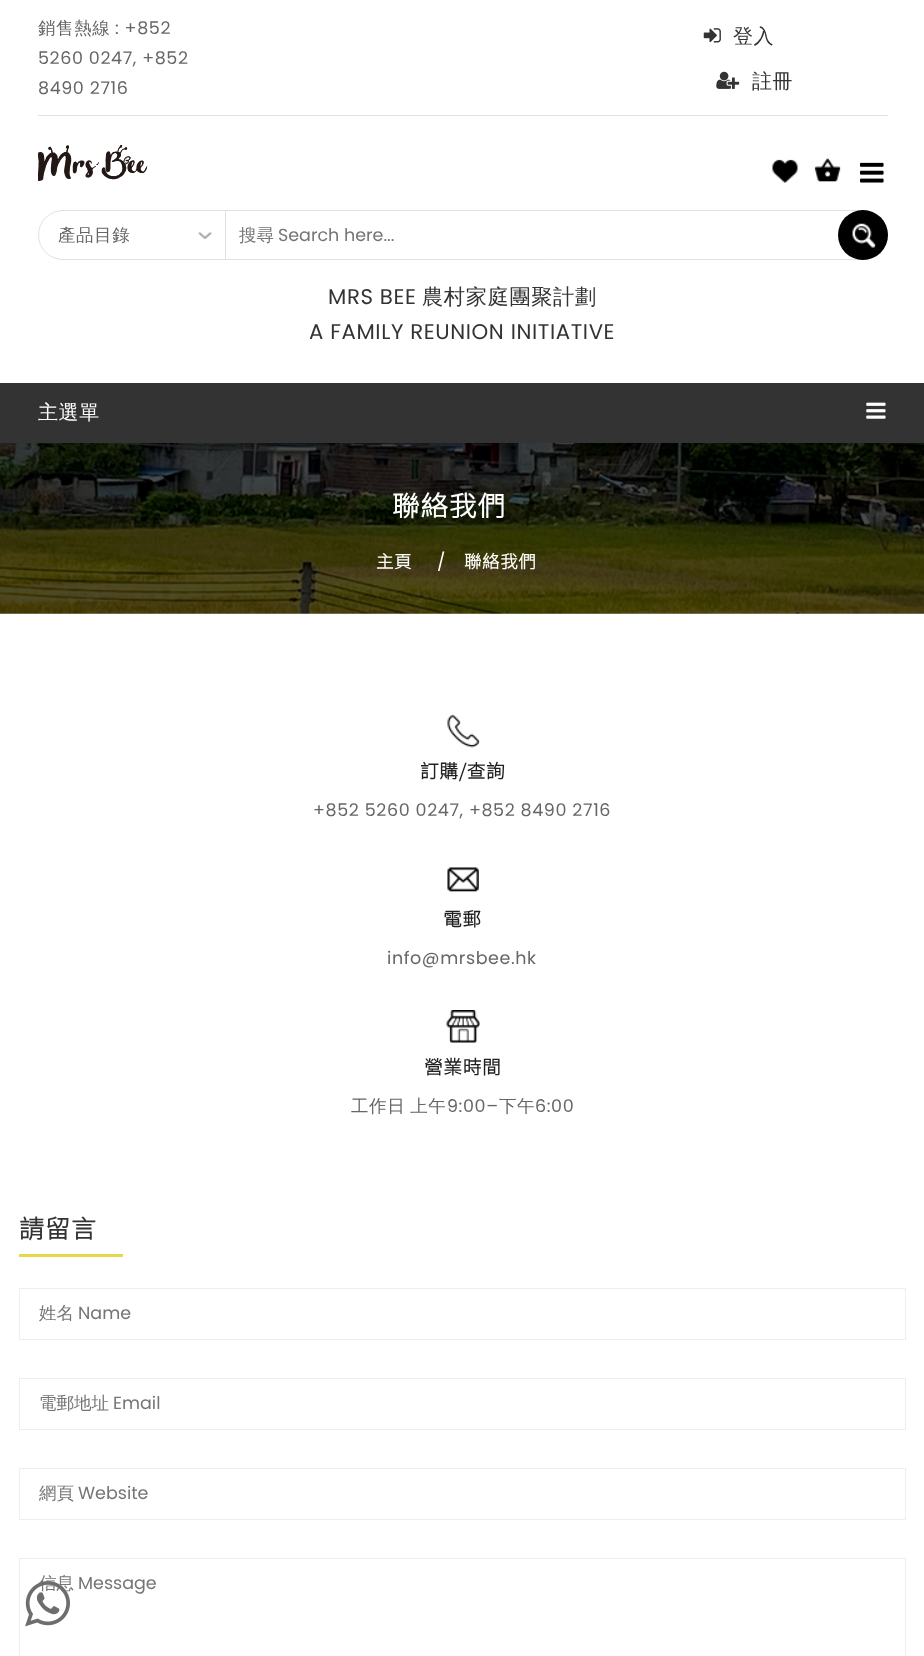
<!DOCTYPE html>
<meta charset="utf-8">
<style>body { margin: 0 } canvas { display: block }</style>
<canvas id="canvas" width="924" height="1656"></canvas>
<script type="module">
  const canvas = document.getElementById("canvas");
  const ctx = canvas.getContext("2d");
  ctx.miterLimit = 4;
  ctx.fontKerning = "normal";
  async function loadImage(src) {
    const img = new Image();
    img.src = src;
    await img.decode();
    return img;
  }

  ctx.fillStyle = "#ffffff";
  ctx.fillRect(0, 0, 924, 1656);
  ctx.letterSpacing = "0.6px";
  ctx.font = "500 17.5px WenQuanYi Zen Hei";
  ctx.fillStyle = "#666666";
  ctx.fillText("銷售熱線", 38, 34);
  ctx.font = "17.5px Poppins";
  ctx.fillText(": +852", 115, 34);
  ctx.fillText("5260 0247, +852", 38, 64);
  ctx.fillText("8490 2716", 38, 94);
  ctx.drawImage(await loadImage("img1.png"), 703, 28, 18, 15);
  ctx.font = "500 20px WenQuanYi Zen Hei";
  ctx.fillStyle = "#333333";
  ctx.fillText("登入", 733, 43);
  ctx.drawImage(await loadImage("img2.png"), 716, 71, 24, 18);
  ctx.fillText("註冊", 752, 88);
  ctx.fillStyle = "#e1e1e1";
  ctx.fillRect(38, 115, 850, 1);
  ctx.drawImage(await loadImage("img3.png"), 38, 145, 110, 36);
  ctx.drawImage(await loadImage("img4.png"), 772, 159, 26, 24);
  ctx.drawImage(await loadImage("img5.png"), 814, 158, 27, 24);
  ctx.drawImage(await loadImage("img6.png"), 860, 162, 24, 21);
  ctx.beginPath();
  ctx.roundRect(38.5, 210.5, 189, 49, [24.5, 0, 0, 24.5]);
  ctx.strokeStyle = "#e1e1e1";
  ctx.stroke();
  ctx.drawImage(await loadImage("img7.png"), 198, 232, 14, 7);
  ctx.font = "500 17.5px WenQuanYi Zen Hei";
  ctx.fillStyle = "#666666";
  ctx.fillText("產品目錄", 58, 241);
  ctx.fillStyle = "#ffffff";
  ctx.beginPath();
  ctx.roundRect(225.5, 210.5, 662, 49, [0, 24.5, 24.5, 0]);
  ctx.fill();
  ctx.stroke();
  ctx.letterSpacing = "0px";
  ctx.fillStyle = "#757575";
  ctx.fillText("搜尋", 239, 241);
  ctx.font = "17.5px Poppins";
  ctx.fillText("Search here...", 278, 241);
  ctx.fillStyle = "#000000";
  ctx.beginPath();
  ctx.arc(863, 235, 25, 0, Math.PI * 2);
  ctx.fill();
  ctx.drawImage(await loadImage("img8.png"), 852, 223, 24, 25);
  ctx.letterSpacing = "0.6px";
  ctx.font = "21.25px Poppins";
  ctx.fillStyle = "#333333";
  ctx.fillText("MRS BEE", 328, 304);
  ctx.font = "500 21.25px WenQuanYi Zen Hei";
  ctx.fillText("農村家庭團聚計劃", 422, 304);
  ctx.font = "21.25px Poppins";
  ctx.fillText("A FAMILY REUNION INITIATIVE", 309, 339);
  ctx.fillRect(0, 383, 924, 60);
  ctx.font = "500 20px WenQuanYi Zen Hei";
  ctx.fillStyle = "#ffffff";
  ctx.fillText("主選單", 38, 419);
  ctx.drawImage(await loadImage("img9.png"), 866, 402, 20, 17);
  ctx.drawImage(await loadImage("img10.png"), 0, 443, 924, 171);
  ctx.letterSpacing = "1px";
  ctx.font = "bold 27.5px Noto Sans TC";
  ctx.fillText("聯絡我們", 392, 516);
  ctx.letterSpacing = "0.6px";
  ctx.font = "bold 17.5px Noto Sans TC";
  ctx.fillText("主頁", 376, 568);
  ctx.font = "17.5px Poppins";
  ctx.fillText("/", 437, 568);
  ctx.font = "bold 17.5px Noto Sans TC";
  ctx.fillText("聯絡我們", 464, 568);
  ctx.drawImage(await loadImage("img11.png"), 447, 714, 33, 34);
  ctx.font = "bold 18.75px Noto Sans TC";
  ctx.fillStyle = "#1f1f1f";
  ctx.fillText("訂購/查詢", 420, 778);
  ctx.font = "17.5px Poppins";
  ctx.fillStyle = "#666666";
  ctx.fillText("+852 5260 0247, +852 8490 2716", 313, 816);
  ctx.drawImage(await loadImage("img12.png"), 447, 867, 32, 25);
  ctx.font = "bold 18.75px Noto Sans TC";
  ctx.fillStyle = "#1f1f1f";
  ctx.fillText("電郵", 443, 926);
  ctx.font = "17.5px Poppins";
  ctx.fillStyle = "#666666";
  ctx.fillText("info@mrsbee.hk", 387, 964);
  ctx.drawImage(await loadImage("img13.png"), 446, 1010, 34, 33);
  ctx.font = "bold 18.75px Noto Sans TC";
  ctx.fillStyle = "#1f1f1f";
  ctx.fillText("營業時間", 424, 1074);
  ctx.wordSpacing = "-1px";
  ctx.font = "500 17.5px WenQuanYi Zen Hei";
  ctx.fillStyle = "#666666";
  ctx.fillText("工作日 上午", 351, 1112);
  ctx.wordSpacing = "0px";
  ctx.font = "17.5px Poppins";
  ctx.fillText("9:00–", 447, 1112);
  ctx.font = "500 17.5px WenQuanYi Zen Hei";
  ctx.fillText("下午", 499, 1112);
  ctx.font = "17.5px Poppins";
  ctx.fillText("6:00", 535, 1112);
  ctx.letterSpacing = "1px";
  ctx.font = "bold 25px Noto Sans TC";
  ctx.fillStyle = "#333333";
  ctx.fillText("請留言", 19, 1238);
  ctx.fillStyle = "#e8d64d";
  ctx.fillRect(19, 1254, 104, 3);
  ctx.strokeStyle = "#eeeeee";
  ctx.strokeRect(19.5, 1288.5, 886, 51);
  ctx.letterSpacing = "0px";
  ctx.font = "500 17.5px WenQuanYi Zen Hei";
  ctx.fillStyle = "#757575";
  ctx.fillText("姓名", 39, 1319);
  ctx.font = "17.5px Poppins";
  ctx.fillText("Name", 78, 1319);
  ctx.strokeRect(19.5, 1378.5, 886, 51);
  ctx.font = "500 17.5px WenQuanYi Zen Hei";
  ctx.fillText("電郵地址", 39, 1409);
  ctx.font = "17.5px Poppins";
  ctx.fillText("Email", 113, 1409);
  ctx.strokeRect(19.5, 1468.5, 886, 51);
  ctx.font = "500 17.5px WenQuanYi Zen Hei";
  ctx.fillText("網頁", 39, 1499);
  ctx.font = "17.5px Poppins";
  ctx.fillText("Website", 78, 1499);
  ctx.strokeRect(19.5, 1558.5, 886, 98);
  ctx.font = "500 17.5px WenQuanYi Zen Hei";
  ctx.fillText("信息", 39, 1589);
  ctx.font = "17.5px Poppins";
  ctx.fillText("Message", 78, 1589);
  ctx.drawImage(await loadImage("img14.png"), 25, 1581, 45, 46);
</script>
